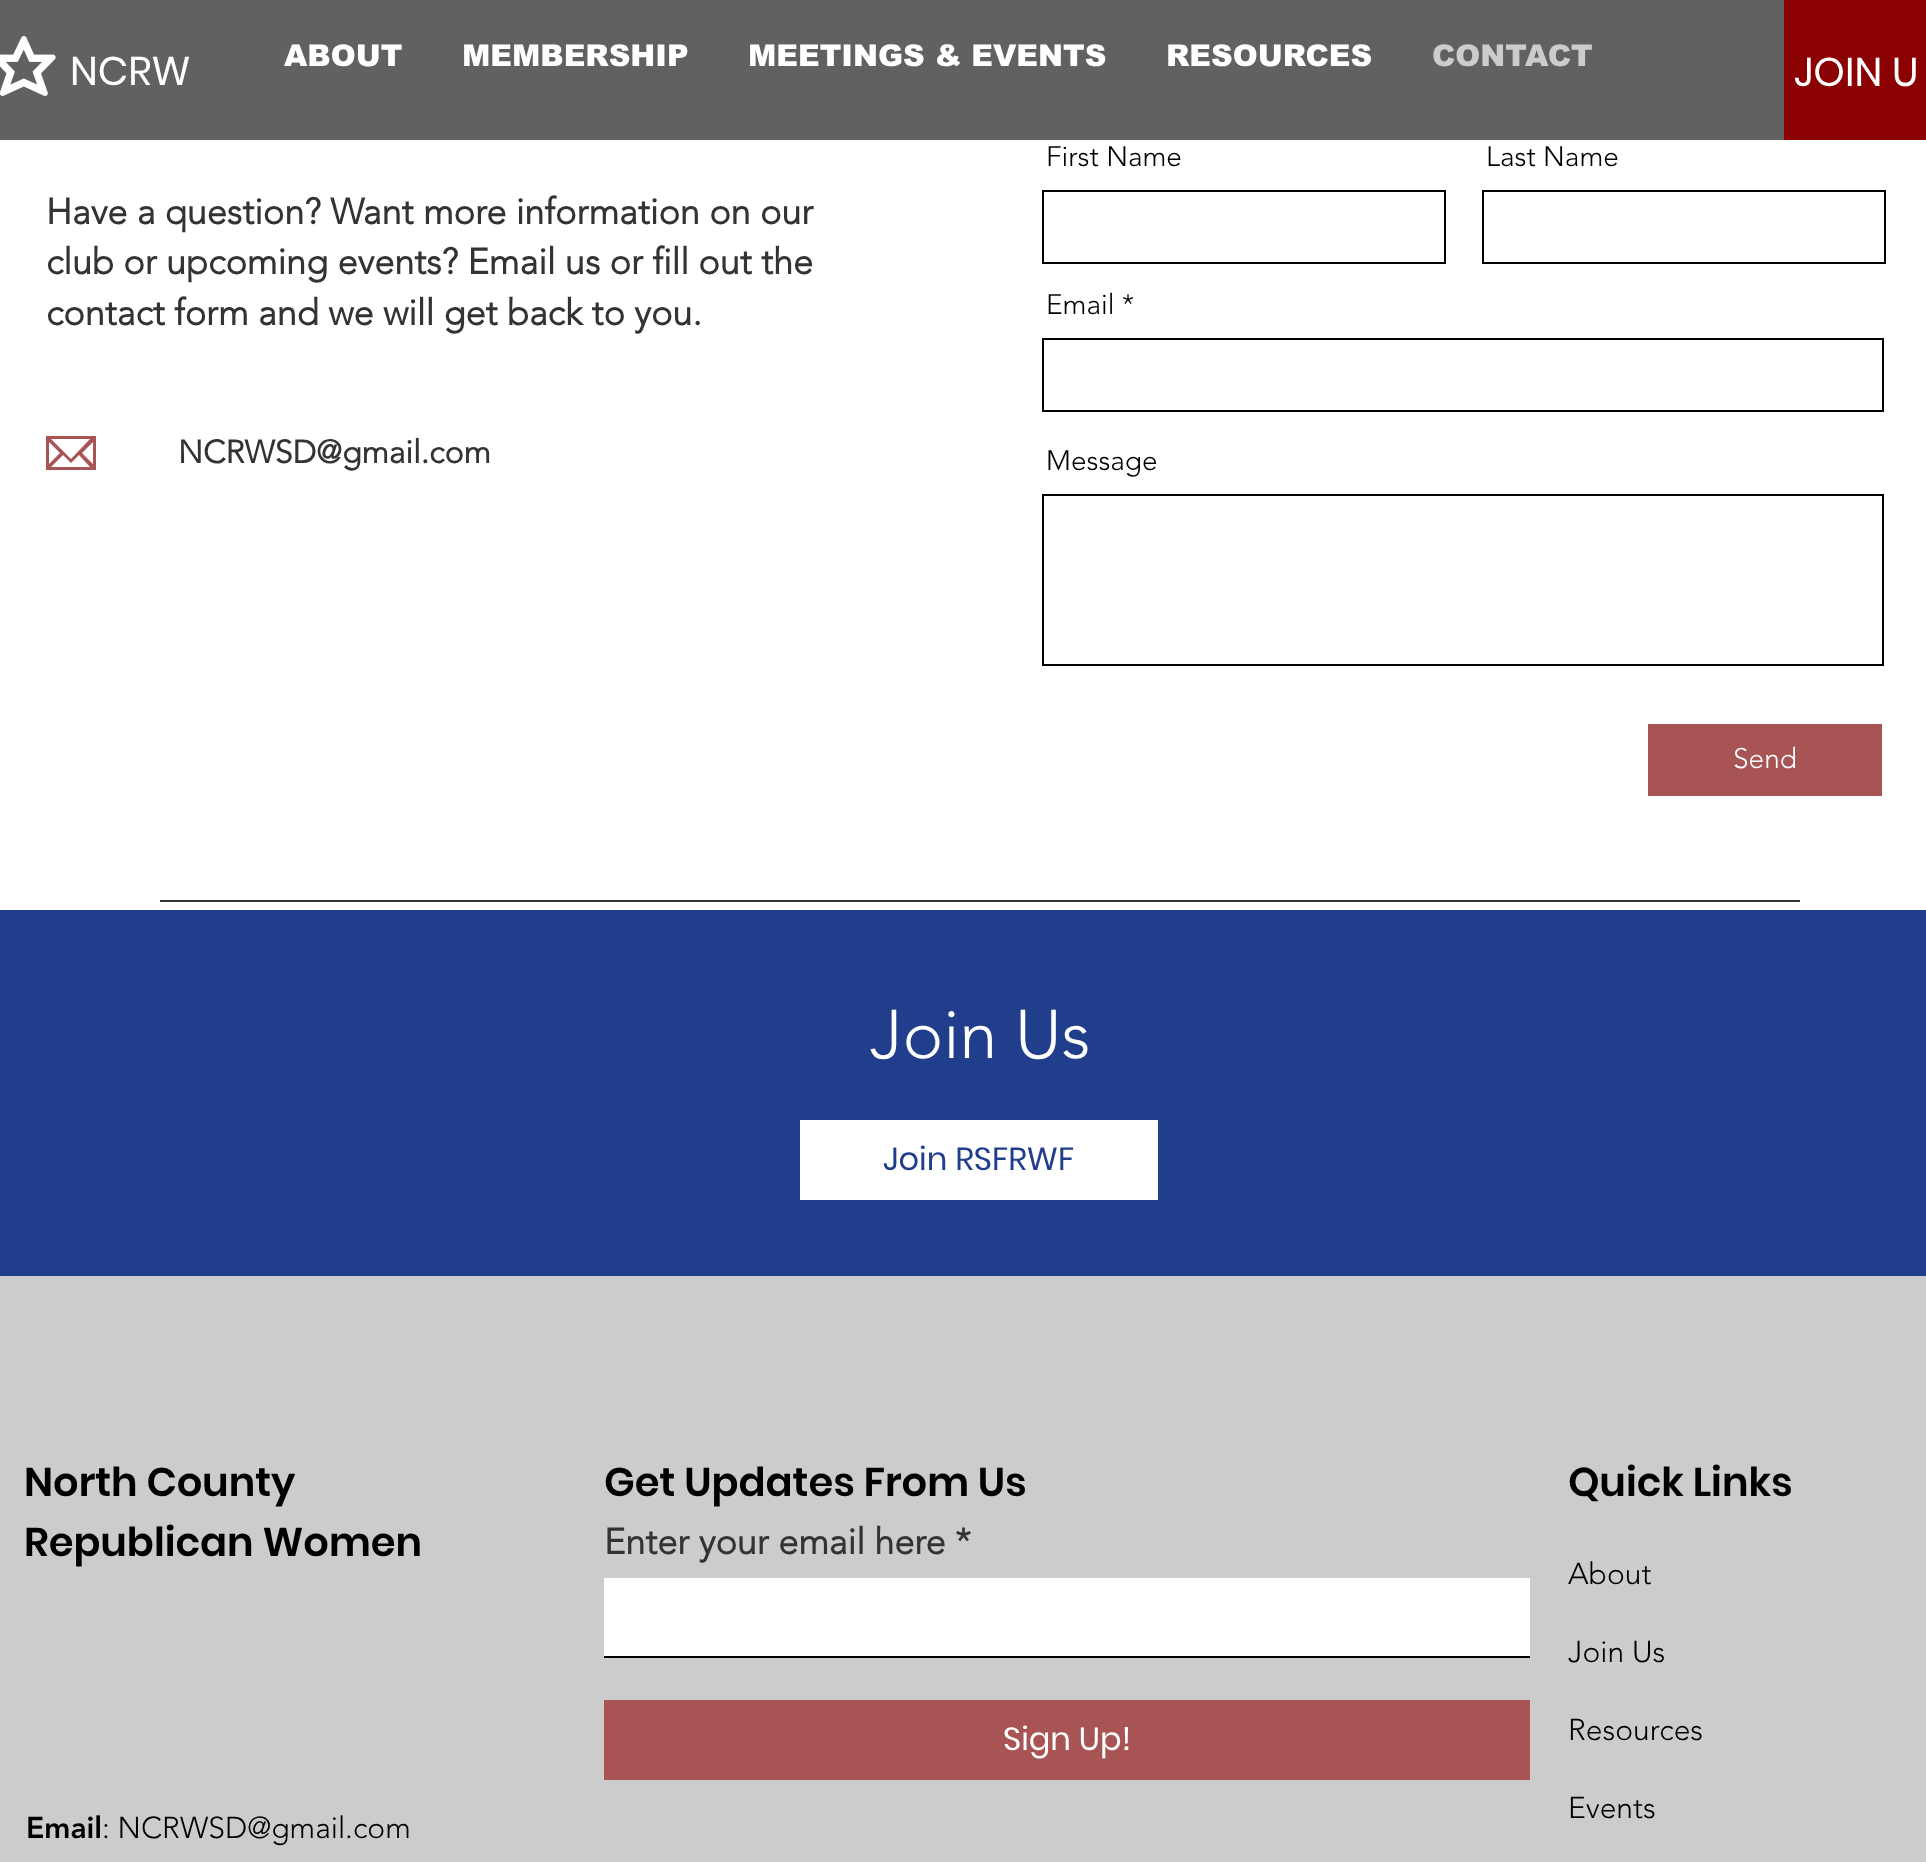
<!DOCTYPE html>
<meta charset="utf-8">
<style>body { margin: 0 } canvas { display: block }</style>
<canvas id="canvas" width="1926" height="1862"></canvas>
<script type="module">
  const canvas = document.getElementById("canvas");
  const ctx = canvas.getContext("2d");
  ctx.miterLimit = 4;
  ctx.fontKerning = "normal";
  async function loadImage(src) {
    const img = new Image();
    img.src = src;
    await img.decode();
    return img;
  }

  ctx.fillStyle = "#ffffff";
  ctx.fillRect(0, 0, 1926, 1862);
  ctx.fillStyle = "rgba(0, 0, 0, 0.62)";
  ctx.fillRect(0, 0, 432, 140);
  ctx.drawImage(await loadImage("img1.png"), 0, 36, 56, 60);
  ctx.font = "40px Poppins";
  ctx.fillStyle = "#ffffff";
  ctx.fillText("NCRW", 70, 85);
  ctx.fillStyle = "rgba(0, 0, 0, 0.62)";
  ctx.fillRect(432, 0, 1352, 140);
  ctx.font = "900 30px arial";
  ctx.fillStyle = "#ffffff";
  ctx.fillText("ABOUT", 284, 66);
  ctx.fillText("MEMBERSHIP", 462, 66);
  ctx.fillText("MEETINGS & EVENTS", 748, 66);
  ctx.fillText("RESOURCES", 1166, 66);
  ctx.fillStyle = "#cccccc";
  ctx.fillText("CONTACT", 1432, 66);
  ctx.fillStyle = "#8b0000";
  ctx.fillRect(1784, 0, 142, 140);
  ctx.font = "40px Poppins";
  ctx.fillStyle = "#ffffff";
  ctx.fillText("JOIN U", 1794, 86);
  ctx.font = "bold 36px 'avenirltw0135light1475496'";
  ctx.fillStyle = "#333333";
  ctx.fillText("Have a question? Want more information on our", 46, 224);
  ctx.fillText("club or upcoming events? Email us or fill out the", 46, 274);
  ctx.fillText("contact form and we will get back to you.", 46, 325);
  ctx.font = "300 28px 'avenirltw0135light1475496'";
  ctx.fillStyle = "#000000";
  ctx.fillText("First Name", 1046, 166);
  ctx.strokeStyle = "#000000";
  ctx.lineWidth = 2;
  ctx.strokeRect(1043, 191, 402, 72);
  ctx.fillText("Last Name", 1486, 166);
  ctx.strokeRect(1483, 191, 402, 72);
  ctx.fillText("Email *", 1046, 314);
  ctx.strokeRect(1043, 339, 840, 72);
  ctx.fillText("Message", 1046, 470);
  ctx.strokeRect(1043, 495, 840, 170);
  ctx.fillStyle = "#a85454";
  ctx.fillRect(1648, 724, 234, 72);
  ctx.fillStyle = "#ffffff";
  ctx.fillText("Send", 1733, 768);
  ctx.fillStyle = "#a85454";
  ctx.beginPath();
  ctx.moveTo(46, 436);
  ctx.lineTo(46, 470);
  ctx.lineTo(96, 470);
  ctx.lineTo(96, 436);
  ctx.closePath();
  ctx.moveTo(71, 459);
  ctx.lineTo(51, 439);
  ctx.lineTo(90, 439);
  ctx.closePath();
  ctx.moveTo(60, 453);
  ctx.lineTo(49, 464);
  ctx.lineTo(49, 442);
  ctx.closePath();
  ctx.moveTo(63, 455);
  ctx.lineTo(71, 463);
  ctx.lineTo(79, 455);
  ctx.lineTo(90, 467);
  ctx.lineTo(51, 467);
  ctx.closePath();
  ctx.moveTo(82, 453);
  ctx.lineTo(93, 442);
  ctx.lineTo(93, 464);
  ctx.closePath();
  ctx.fill();
  ctx.font = "bold 32px 'avenirltw0135light1475496'";
  ctx.fillStyle = "#333333";
  ctx.fillText("NCRWSD@gmail.com", 178, 463);
  ctx.fillRect(160, 900, 1640, 2);
  ctx.fillStyle = "#213e8c";
  ctx.fillRect(0, 910, 1926, 366);
  ctx.font = "300 68px 'avenirltw0135light1475496'";
  ctx.fillStyle = "#ffffff";
  ctx.fillText("Join Us", 870, 1058);
  ctx.fillRect(800, 1120, 358, 80);
  ctx.font = "32px Poppins";
  ctx.fillStyle = "#213e8c";
  ctx.fillText("Join RSFRWF", 883, 1170);
  ctx.fillStyle = "#cccccc";
  ctx.fillRect(0, 1276, 1926, 586);
  ctx.font = "600 40px Poppins";
  ctx.fillStyle = "#000000";
  ctx.fillText("North County", 24, 1496);
  ctx.fillText("Republican Women", 24, 1556);
  ctx.font = "900 30px 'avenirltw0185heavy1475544'";
  ctx.fillText("Email", 26, 1838);
  ctx.font = "300 30px 'avenirltw0135light1475496'";
  ctx.fillText(": NCRWSD@gmail.com", 102, 1838);
  ctx.font = "600 40px Poppins";
  ctx.fillText("Get Updates From Us", 604, 1496);
  ctx.font = "bold 36px 'avenirltw0135light1475496'";
  ctx.fillStyle = "#333333";
  ctx.fillText("Enter your email here *", 604, 1554);
  ctx.fillStyle = "#ffffff";
  ctx.fillRect(604, 1578, 926, 78);
  ctx.fillStyle = "#000000";
  ctx.fillRect(604, 1656, 926, 2);
  ctx.fillStyle = "#a85454";
  ctx.fillRect(604, 1700, 926, 80);
  ctx.font = "32px Poppins";
  ctx.fillStyle = "#ffffff";
  ctx.fillText("Sign Up!", 1003, 1750);
  ctx.font = "600 40px Poppins";
  ctx.fillStyle = "#000000";
  ctx.fillText("Quick Links", 1568, 1496);
  ctx.font = "300 30px 'avenirltw0135light1475496'";
  ctx.fillText("About", 1568, 1584);
  ctx.fillText("Join Us", 1568, 1662);
  ctx.fillText("Resources", 1568, 1740);
  ctx.fillText("Events", 1568, 1818);
</script>
